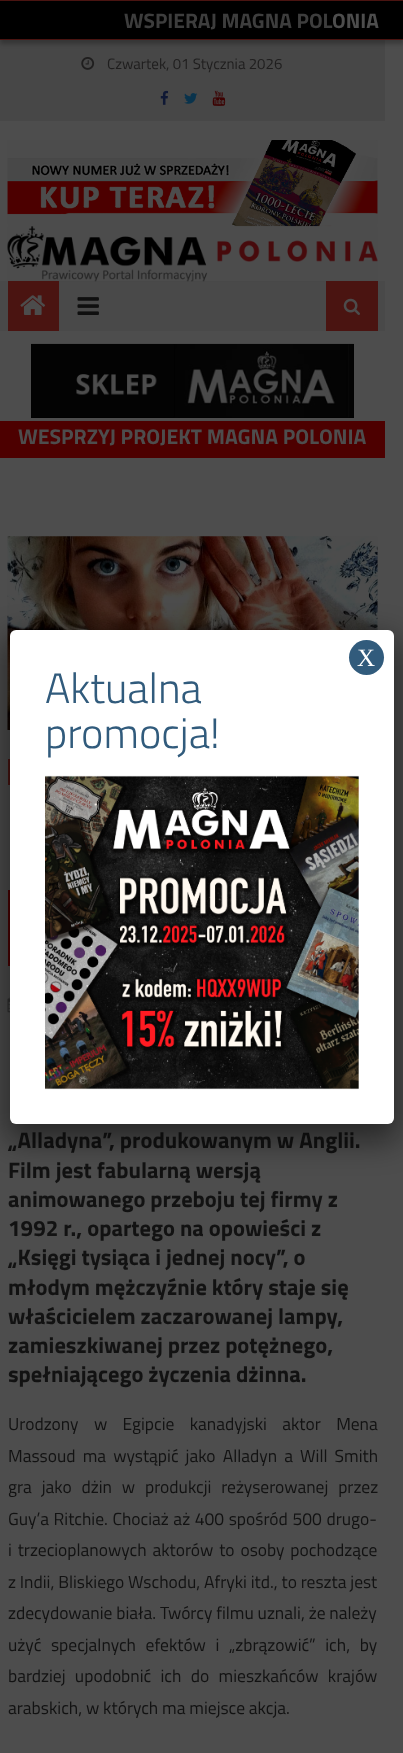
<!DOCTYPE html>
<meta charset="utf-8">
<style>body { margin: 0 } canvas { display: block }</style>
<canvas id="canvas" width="403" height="1753"></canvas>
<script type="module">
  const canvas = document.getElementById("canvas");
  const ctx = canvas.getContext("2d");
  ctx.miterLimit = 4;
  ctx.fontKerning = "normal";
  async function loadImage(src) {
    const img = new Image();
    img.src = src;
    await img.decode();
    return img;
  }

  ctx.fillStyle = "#4d4d4d";
  ctx.fillRect(0, 0, 403, 1753);
  ctx.fillStyle = "#474747";
  ctx.fillRect(0, 40, 385, 81);
  ctx.fillStyle = "rgba(0, 0, 0, 0.25)";
  ctx.filter = "blur(2px)";
  ctx.beginPath();
  ctx.rect(0, 4, 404, 40);
  ctx.fill();
  ctx.filter = "none";
  ctx.fillStyle = "#000000";
  ctx.fillRect(0, 1, 403, 38);
  ctx.fillStyle = "#4a1411";
  ctx.fillRect(0, 0, 403, 1);
  ctx.fillRect(0, 39, 403, 1);
  ctx.font = "bold 21px Titillium Web";
  ctx.fillStyle = "#3d3d3d";
  ctx.fillText("WSPIERAJ MAGNA POL", 124, 28);
  ctx.fillStyle = "#4d4d4d";
  ctx.fillText("ONIA", 332, 28);
  ctx.drawImage(await loadImage("img1.png"), 81, 57, 14, 13);
  ctx.font = "15px Titillium Web";
  ctx.fillStyle = "#1f1e1e";
  ctx.fillText("Czwartek, 01 Stycznia 2026", 107, 69);
  ctx.drawImage(await loadImage("img2.png"), 160, 90, 9, 15);
  ctx.drawImage(await loadImage("img3.png"), 184, 93, 14, 11);
  ctx.drawImage(await loadImage("img4.png"), 212, 90, 14, 16);
  ctx.drawImage(await loadImage("img5.png"), 7, 140, 371, 87);
  ctx.drawImage(await loadImage("img6.png"), 7, 226, 371, 56);
  ctx.fillStyle = "rgba(0, 0, 0, 0.05)";
  ctx.fillRect(0, 281, 385, 50);
  ctx.fillStyle = "#4a1411";
  ctx.fillRect(8, 281, 51, 50);
  ctx.drawImage(await loadImage("img7.png"), 20, 295, 26, 20);
  ctx.drawImage(await loadImage("img8.png"), 77, 297, 22, 18);
  ctx.fillRect(326, 281, 52, 50);
  ctx.drawImage(await loadImage("img9.png"), 343, 298, 17, 17);
  ctx.fillStyle = "#000000";
  ctx.fillRect(31, 344, 323, 74);
  ctx.drawImage(await loadImage("img10.png"), 31, 343, 323, 75);
  ctx.fillStyle = "#4d0000";
  ctx.fillRect(0, 421, 385, 37);
  ctx.font = "bold 21.25px Titillium Web";
  ctx.fillStyle = "#4d4d4d";
  ctx.fillText("WESPRZYJ PROJEKT MAGNA POLONIA", 18, 444);
  ctx.drawImage(await loadImage("img11.png"), 7, 536, 371, 194);
  ctx.fillStyle = "#4a1411";
  ctx.fillRect(8, 759, 2, 26);
  ctx.fillStyle = "#4d0000";
  ctx.fillRect(8, 890, 2, 76);
  ctx.drawImage(await loadImage("img12.png"), 7, 997, 3, 16);
  ctx.font = "bold 22.5px Titillium Web";
  ctx.fillStyle = "#121212";
  ctx.fillText("„Alladyna”, produkowanym w Anglii.", 8, 1148);
  ctx.fillText("Film jest fabularną wersją", 8, 1178);
  ctx.fillText("animowanego przeboju tej firmy z", 8, 1207);
  ctx.fillText("1992 r., opartego na opowieści z", 8, 1236);
  ctx.fillText("„Księgi tysiąca i jednej nocy”, o", 8, 1265);
  ctx.fillText("młodym mężczyźnie który staje się", 8, 1295);
  ctx.fillText("właścicielem zaczarowanej lampy,", 8, 1324);
  ctx.fillText("zamieszkiwanej przez potężnego,", 8, 1353);
  ctx.fillText("spełniającego życzenia dżinna.", 8, 1382);
  ctx.wordSpacing = "11.5px";
  ctx.font = "17.5px Titillium Web";
  ctx.fillText("Urodzony w Egipcie kanadyjski aktor Mena", 8, 1430);
  ctx.wordSpacing = "3.25px";
  ctx.fillText("Massoud ma wystąpić jako Alladyn a Will Smith", 8, 1462);
  ctx.wordSpacing = "6px";
  ctx.fillText("gra jako dżin w produkcji reżyserowanej przez", 8, 1493);
  ctx.wordSpacing = "0.75px";
  ctx.fillText("Guy’a Ritchie. Chociaż aż 400 spośród 500 drugo-", 8, 1525);
  ctx.wordSpacing = "2px";
  ctx.fillText("i trzecioplanowych aktorów to osoby pochodzące", 8, 1556);
  ctx.wordSpacing = "0px";
  ctx.fillText("z Indii, Bliskiego Wschodu, Afryki itd., to reszta jest", 8, 1588);
  ctx.fillText("zdecydowanie biała. Twórcy filmu uznali, że należy", 8, 1619);
  ctx.wordSpacing = "5.75px";
  ctx.fillText("użyć specjalnych efektów i „zbrązowić” ich, by", 8, 1651);
  ctx.wordSpacing = "5.5px";
  ctx.fillText("bardziej upodobnić ich do mieszkańców krajów", 8, 1682);
  ctx.wordSpacing = "0px";
  ctx.fillText("arabskich, w których ma miejsce akcja.", 8, 1714);
  ctx.fillStyle = "rgba(2, 2, 2, 0.5)";
  ctx.filter = "blur(15.5px)";
  ctx.beginPath();
  ctx.roundRect(5, 638, 394, 503, 11);
  ctx.fill();
  ctx.filter = "none";
  ctx.fillStyle = "#ffffff";
  ctx.beginPath();
  ctx.roundRect(10, 630, 384, 494, 6);
  ctx.fill();
  ctx.fillStyle = "#315b7c";
  ctx.beginPath();
  ctx.arc(366.5, 657.5, 17.5, 0, Math.PI * 2);
  ctx.fill();
  ctx.font = "25px Liberation Serif";
  ctx.fillStyle = "#ffffff";
  ctx.fillText("X", 357, 666);
  ctx.font = "300 42.5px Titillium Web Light";
  ctx.fillStyle = "#315b7c";
  ctx.fillText("Aktualna", 45, 703);
  ctx.fillText("promocja!", 45, 748);
  ctx.drawImage(await loadImage("img13.png"), 45, 775, 314, 315);
</script>
